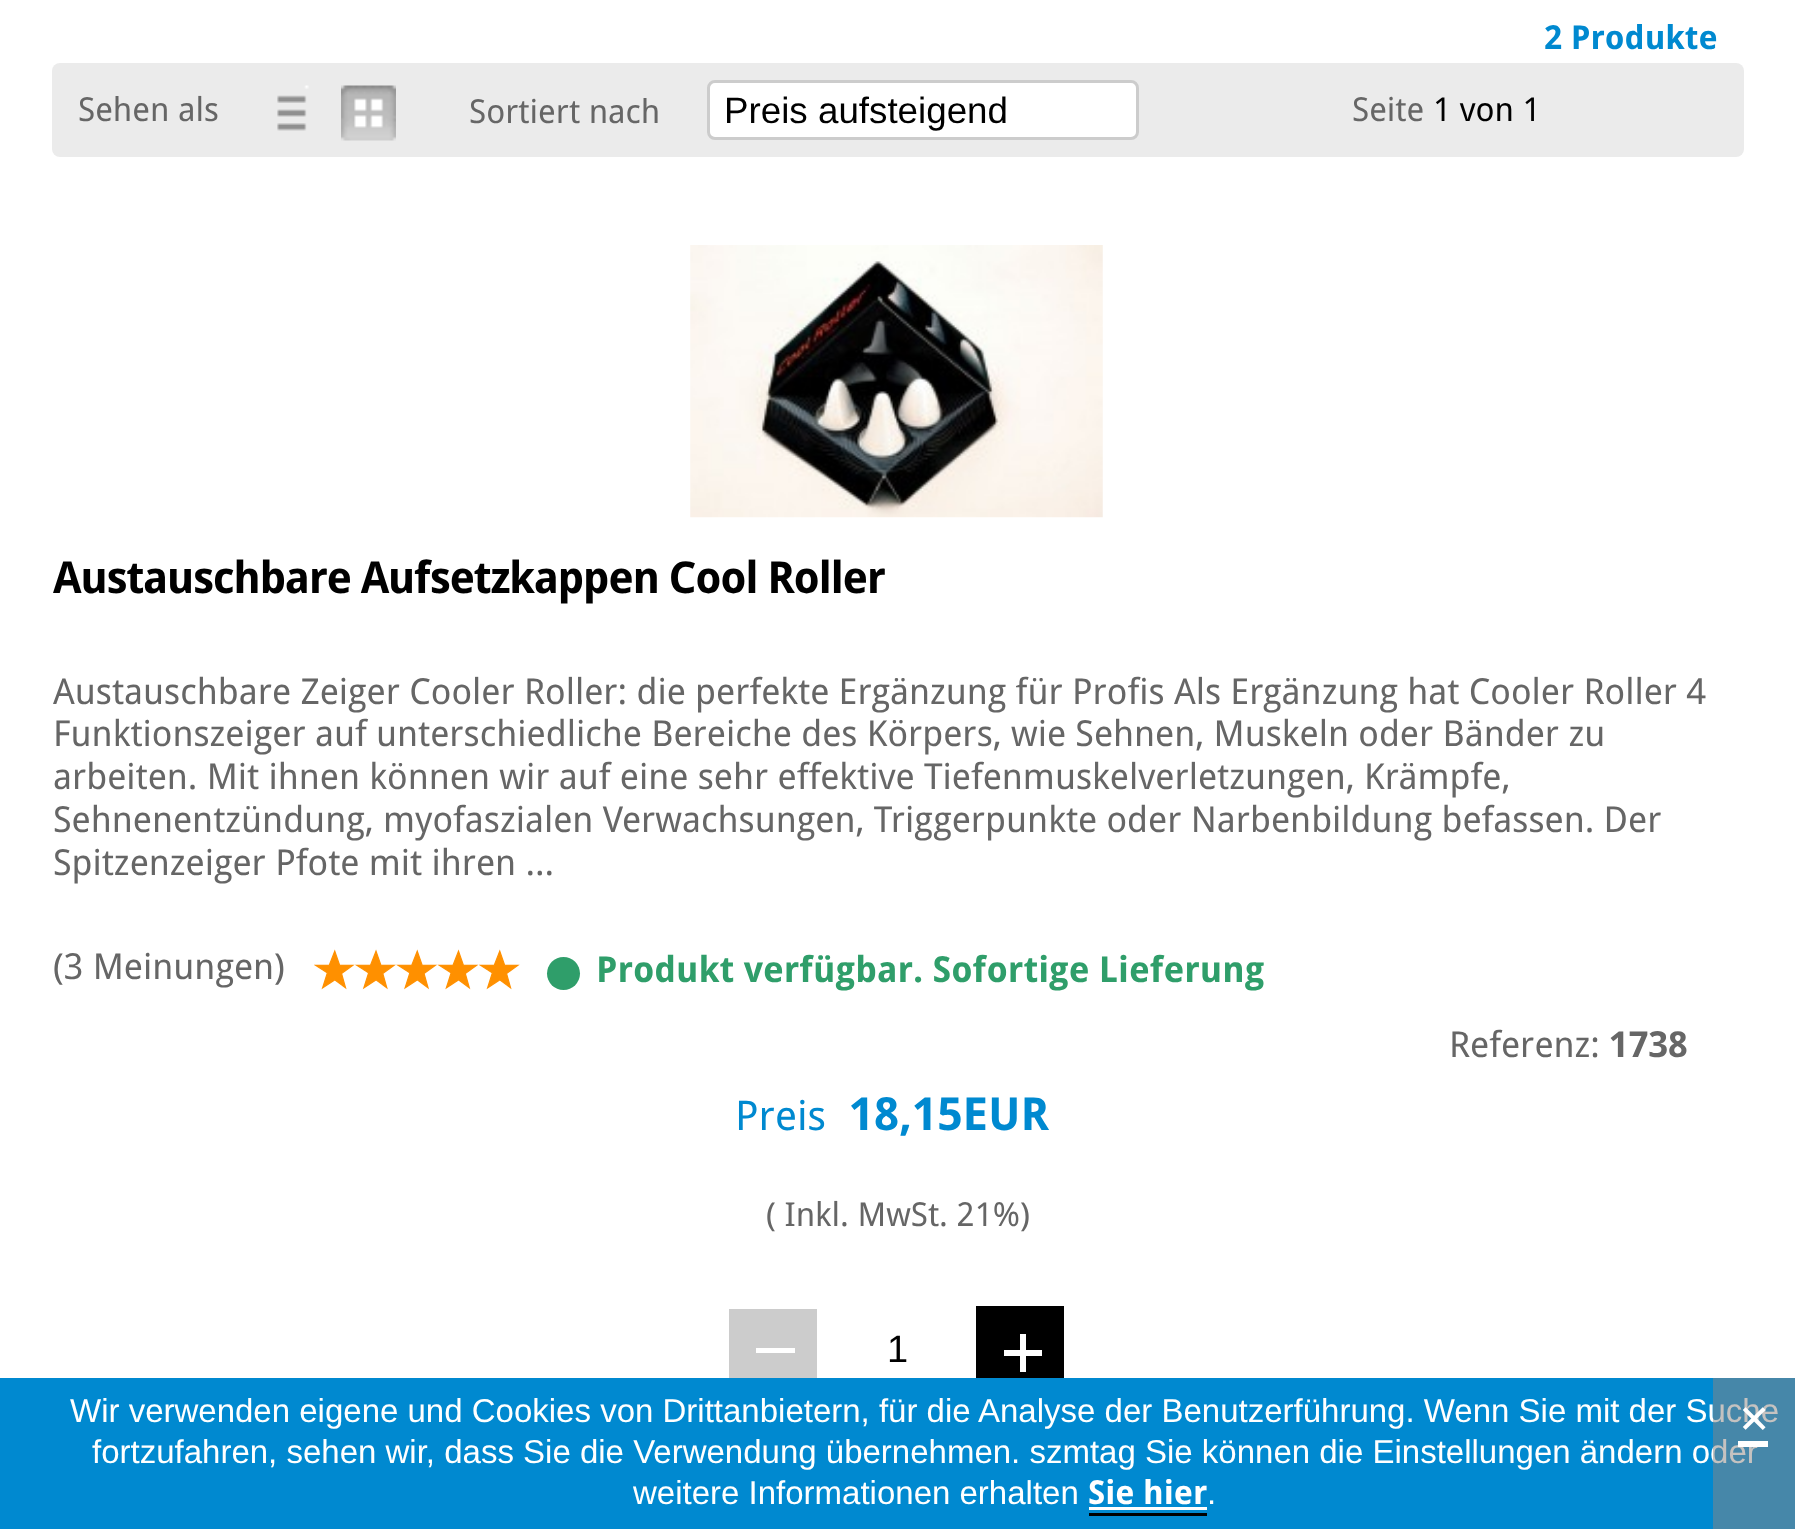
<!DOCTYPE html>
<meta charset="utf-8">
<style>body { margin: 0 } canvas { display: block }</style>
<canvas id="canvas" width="1795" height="1529"></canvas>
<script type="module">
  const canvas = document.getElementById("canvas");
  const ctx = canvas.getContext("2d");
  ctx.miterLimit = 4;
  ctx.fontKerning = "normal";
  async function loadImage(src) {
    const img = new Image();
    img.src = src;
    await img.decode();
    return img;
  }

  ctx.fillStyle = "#ffffff";
  ctx.fillRect(0, 0, 1795, 1529);
  ctx.font = "bold 33px Droid Sans";
  ctx.fillStyle = "#0089d0";
  ctx.fillText("2 Produkte", 1544, 49);
  ctx.fillStyle = "#ebebeb";
  ctx.beginPath();
  ctx.roundRect(52, 63, 1692, 94, 8);
  ctx.fill();
  ctx.font = "33px Droid Sans";
  ctx.fillStyle = "#666666";
  ctx.fillText("Sehen als", 78, 121);
  ctx.drawImage(await loadImage("img1.png"), 277, 85, 32, 46);
  ctx.drawImage(await loadImage("img2.png"), 341, 85, 55, 56);
  ctx.fillText("Sortiert nach", 469, 123);
  ctx.fillStyle = "#ffffff";
  ctx.beginPath();
  ctx.roundRect(708.5, 81.5, 429, 57, 6.5);
  ctx.fill();
  ctx.strokeStyle = "#cccccc";
  ctx.lineWidth = 3;
  ctx.stroke();
  ctx.font = "36.75px Liberation Sans";
  ctx.fillStyle = "#000000";
  ctx.fillText("Preis aufsteigend", 724, 123);
  ctx.font = "33px Droid Sans";
  ctx.fillStyle = "#666666";
  ctx.fillText("Seite", 1352, 121);
  ctx.fillStyle = "#000000";
  ctx.fillText("1 von 1", 1433, 121);
  ctx.drawImage(await loadImage("img3.png"), 690, 245, 413, 273);
  ctx.letterSpacing = "-1.4px";
  ctx.font = "bold 44px Droid Sans";
  ctx.fillText("Austauschbare Aufsetzkappen Cool Roller", 53, 593);
  ctx.letterSpacing = "0px";
  ctx.font = "35.75px Droid Sans";
  ctx.fillStyle = "#666666";
  ctx.fillText("Austauschbare Zeiger Cooler Roller: die perfekte Ergänzung für Profis Als Ergänzung hat Cooler Roller 4", 53, 704);
  ctx.fillText("Funktionszeiger auf unterschiedliche Bereiche des Körpers, wie Sehnen, Muskeln oder Bänder zu", 53, 746);
  ctx.fillText("arbeiten. Mit ihnen können wir auf eine sehr effektive Tiefenmuskelverletzungen, Krämpfe,", 53, 789);
  ctx.fillText("Sehnenentzündung, myofaszialen Verwachsungen, Triggerpunkte oder Narbenbildung befassen. Der", 53, 832);
  ctx.fillText("Spitzenzeiger Pfote mit ihren ...", 53, 875);
  ctx.fillText("(3 Meinungen)", 53, 979);
  ctx.drawImage(await loadImage("img4.png"), 314, 949, 41, 41);
  ctx.drawImage(await loadImage("img5.png"), 355, 949, 41, 41);
  ctx.drawImage(await loadImage("img6.png"), 396, 949, 41, 41);
  ctx.drawImage(await loadImage("img7.png"), 437, 949, 42, 41);
  ctx.drawImage(await loadImage("img4.png"), 479, 949, 41, 41);
  ctx.fillStyle = "#2f9e6a";
  ctx.beginPath();
  ctx.arc(563.5, 973.5, 16.5, 0, Math.PI * 2);
  ctx.fill();
  ctx.font = "bold 35.75px Droid Sans";
  ctx.fillText("Produkt verfügbar. Sofortige Lieferung", 596, 982);
  ctx.font = "35.75px Droid Sans";
  ctx.fillStyle = "#666666";
  ctx.fillText("Referenz:", 1449, 1057);
  ctx.font = "bold 35.75px Droid Sans";
  ctx.fillText("1738", 1609, 1057);
  ctx.font = "41px Droid Sans";
  ctx.fillStyle = "#0089d0";
  ctx.fillText("Preis", 735, 1130);
  ctx.font = "bold 45.5px Droid Sans";
  ctx.fillText("18,15EUR", 849, 1130);
  ctx.font = "33px Droid Sans";
  ctx.fillStyle = "#666666";
  ctx.fillText("( Inkl. MwSt. 21%)", 766, 1226);
  ctx.fillStyle = "#cccccc";
  ctx.fillRect(729, 1309, 88, 69);
  ctx.fillStyle = "#ffffff";
  ctx.fillRect(756, 1348, 39, 5);
  ctx.font = "38px Liberation Sans";
  ctx.fillStyle = "#000000";
  ctx.fillText("1", 887, 1362);
  ctx.fillRect(976, 1306, 88, 72);
  ctx.fillStyle = "#ffffff";
  ctx.beginPath();
  ctx.moveTo(1020, 1334);
  ctx.lineTo(1026, 1334);
  ctx.lineTo(1026, 1350);
  ctx.lineTo(1042, 1350);
  ctx.lineTo(1042, 1356);
  ctx.lineTo(1026, 1356);
  ctx.lineTo(1026, 1372);
  ctx.lineTo(1020, 1372);
  ctx.lineTo(1020, 1356);
  ctx.lineTo(1004, 1356);
  ctx.lineTo(1004, 1350);
  ctx.lineTo(1020, 1350);
  ctx.closePath();
  ctx.fill("evenodd");
  ctx.fillStyle = "#0089d0";
  ctx.fillRect(0, 1378, 1795, 151);
  ctx.font = "33px Liberation Sans";
  ctx.fillStyle = "#ffffff";
  ctx.fillText("Wir verwenden eigene und Cookies von Drittanbietern, für die Analyse der Benutzerführung. Wenn Sie mit der Suche", 70, 1422);
  ctx.fillText("fortzufahren, sehen wir, dass Sie die Verwendung übernehmen. szmtag Sie können die Einstellungen ändern oder", 92, 1463);
  ctx.fillStyle = "rgba(139, 134, 130, 0.5)";
  ctx.fillRect(1713, 1378, 82, 151);
  ctx.font = "55px Droid Sans";
  ctx.fillStyle = "#ffffff";
  ctx.fillText("×", 1739, 1438);
  ctx.fillRect(1738, 1441, 30, 6);
  ctx.font = "33px Liberation Sans";
  ctx.fillText("weitere Informationen erhalten", 633, 1504);
  ctx.font = "bold 33px Droid Sans";
  ctx.fillText("Sie hier", 1088, 1504);
  ctx.fillStyle = "#000000";
  ctx.fillRect(1089, 1513, 118, 3);
  ctx.fillStyle = "#ffffff";
  ctx.fillRect(1089, 1507, 118, 3);
  ctx.font = "33px Liberation Sans";
  ctx.fillText(".", 1207, 1504);
</script>
